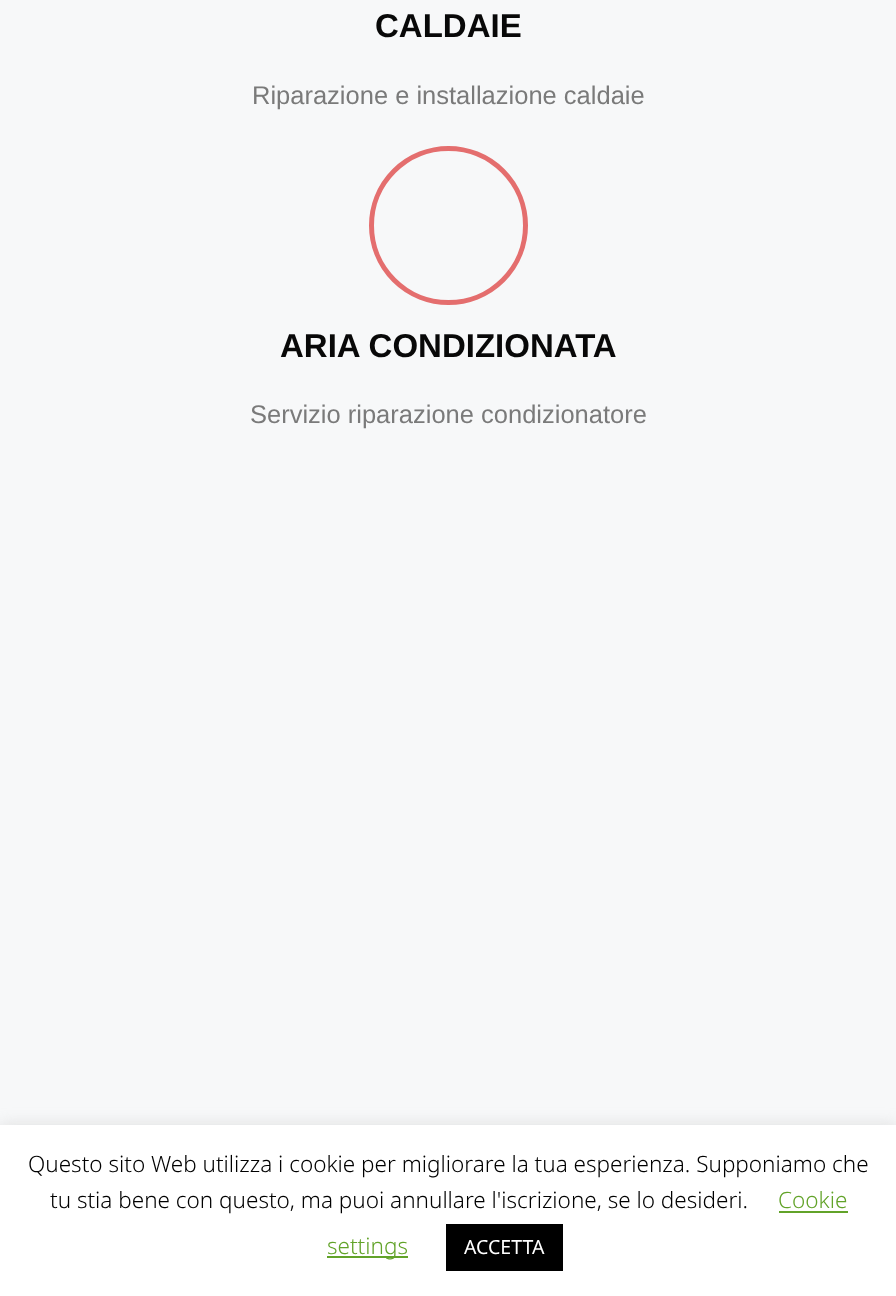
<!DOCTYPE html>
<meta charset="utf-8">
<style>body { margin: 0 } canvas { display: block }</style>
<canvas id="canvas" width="896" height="1296"></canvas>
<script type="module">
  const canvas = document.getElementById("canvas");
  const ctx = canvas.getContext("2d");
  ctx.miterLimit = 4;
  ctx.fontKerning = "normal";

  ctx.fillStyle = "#f7f8f9";
  ctx.fillRect(0, 0, 896, 1296);
  ctx.font = "bold 33px Liberation Sans";
  ctx.fillStyle = "#080808";
  ctx.fillText("CALDAIE", 375, 37);
  ctx.font = "25.5px Liberation Sans";
  ctx.fillStyle = "#7a7a7a";
  ctx.fillText("Riparazione e installazione caldaie", 252, 104);
  ctx.beginPath();
  ctx.arc(448.5, 225.5, 77, 0, Math.PI * 2);
  ctx.strokeStyle = "#e46e6e";
  ctx.lineWidth = 5;
  ctx.stroke();
  ctx.font = "bold 33px Liberation Sans";
  ctx.fillStyle = "#080808";
  ctx.fillText("ARIA CONDIZIONATA", 280, 357);
  ctx.font = "25.5px Liberation Sans";
  ctx.fillStyle = "#7a7a7a";
  ctx.fillText("Servizio riparazione condizionatore", 250, 423);
  ctx.fillStyle = "rgba(172, 171, 171, 0.3)";
  ctx.filter = "blur(7.5px)";
  ctx.beginPath();
  ctx.rect(0, 1124, 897, 171);
  ctx.fill();
  ctx.filter = "none";
  ctx.fillStyle = "#ffffff";
  ctx.fillRect(0, 1125, 896, 171);
  ctx.font = "300 22.5px Noto Sans";
  ctx.fillStyle = "#000000";
  ctx.fillText("Questo sito Web utilizza i cookie per migliorare la tua esperienza. Supponiamo che", 28, 1172);
  ctx.fillText("tu stia bene con questo, ma puoi annullare l'iscrizione, se lo desideri.", 50, 1208);
  ctx.fillStyle = "#62a329";
  ctx.fillText("Cookie", 778, 1208);
  ctx.fillRect(779, 1211, 69, 2);
  ctx.fillRect(327, 1256, 81, 2);
  ctx.fillText("settings", 327, 1254);
  ctx.fillStyle = "#000000";
  ctx.fillRect(446, 1224, 117, 47);
  ctx.font = "19.5px Noto Sans";
  ctx.fillStyle = "#ffffff";
  ctx.fillText("ACCETTA", 464, 1254);
</script>
